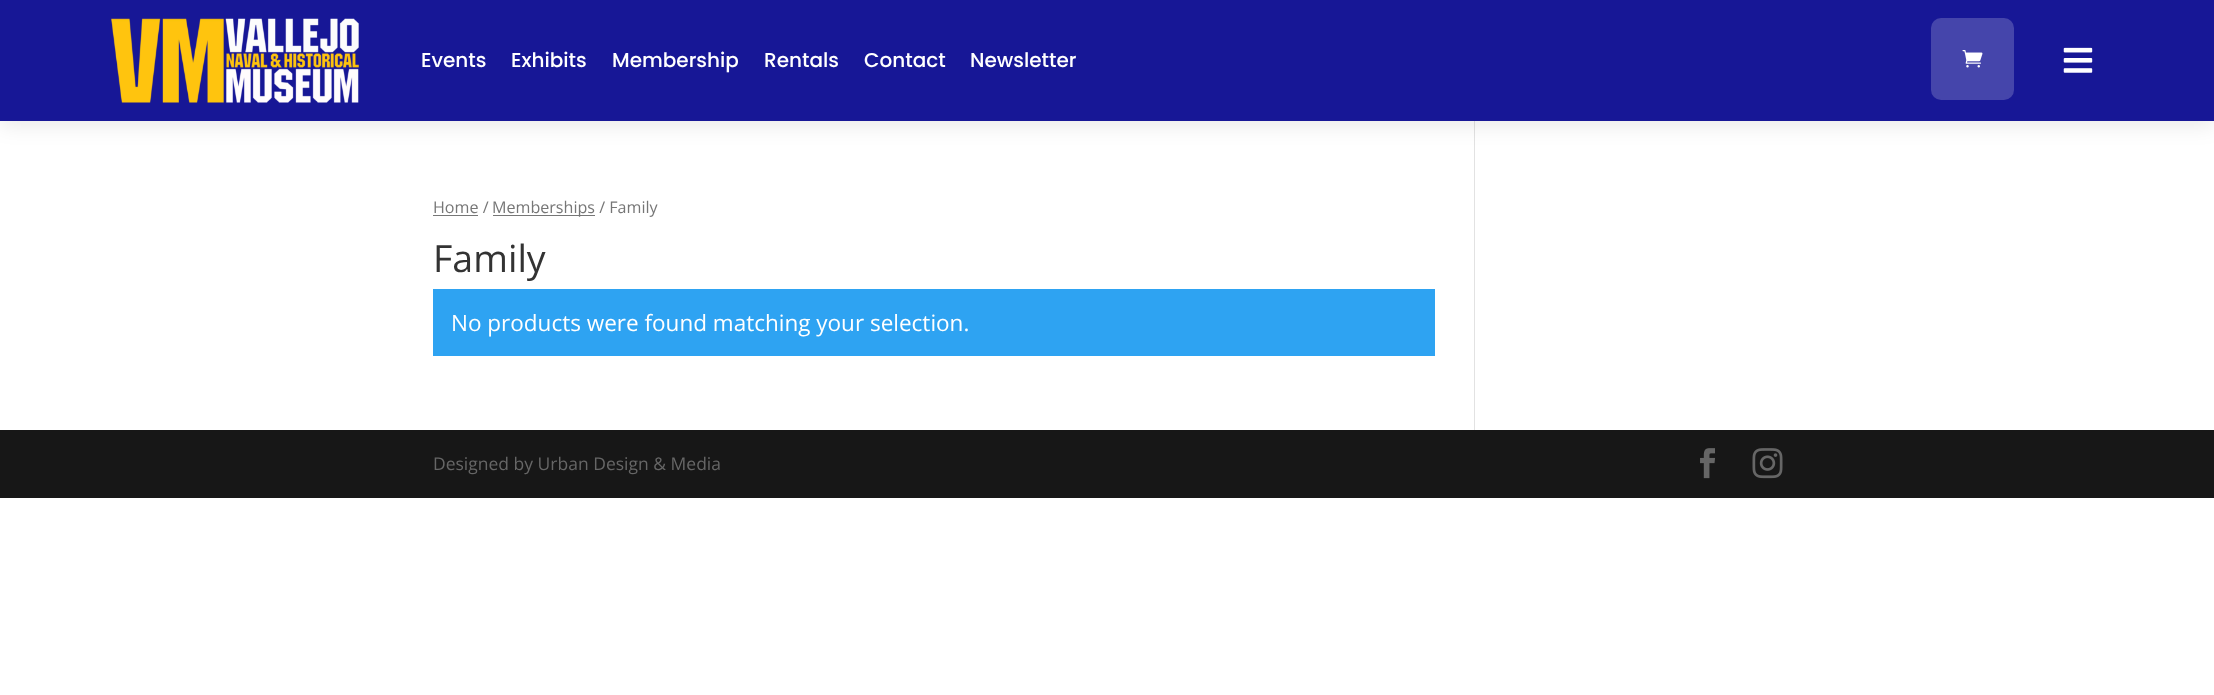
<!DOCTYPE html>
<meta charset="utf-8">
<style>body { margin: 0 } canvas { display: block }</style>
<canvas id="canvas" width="2214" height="695"></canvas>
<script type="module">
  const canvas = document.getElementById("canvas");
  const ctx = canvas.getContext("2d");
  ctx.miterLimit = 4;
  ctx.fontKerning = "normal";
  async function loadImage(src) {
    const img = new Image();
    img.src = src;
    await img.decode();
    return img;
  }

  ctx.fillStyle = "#ffffff";
  ctx.fillRect(0, 0, 2214, 695);
  ctx.fillStyle = "#e2e2e2";
  ctx.fillRect(1474, 121, 1, 309);
  ctx.fillStyle = "rgba(0, 0, 0, 0.1)";
  ctx.filter = "blur(11px)";
  ctx.beginPath();
  ctx.rect(0, 3, 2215, 121);
  ctx.fill();
  ctx.filter = "none";
  ctx.fillStyle = "#171796";
  ctx.fillRect(0, 0, 2214, 121);
  ctx.drawImage(await loadImage("img1.png"), 111, 18, 248, 85);
  ctx.font = "500 20px Poppins";
  ctx.fillStyle = "#ffffff";
  ctx.fillText("Events", 421, 67);
  ctx.fillText("Exhibits", 511, 67);
  ctx.fillText("Membership", 612, 67);
  ctx.fillText("Rentals", 764, 67);
  ctx.fillText("Contact", 864, 67);
  ctx.fillText("Newsletter", 970, 67);
  ctx.fillStyle = "#4545ab";
  ctx.beginPath();
  ctx.roundRect(1931, 18, 83, 82, 10);
  ctx.fill();
  ctx.drawImage(await loadImage("img2.png"), 1962, 50, 21, 18);
  ctx.drawImage(await loadImage("img3.png"), 2063, 47, 30, 26);
  ctx.font = "16.1px Open Sans";
  ctx.fillStyle = "#767676";
  ctx.fillText("Home /", 433, 213);
  ctx.fillRect(433, 215, 45, 1);
  ctx.fillRect(493, 215, 102, 1);
  ctx.fillText("Memberships / Family", 492, 213);
  ctx.font = "37.5px Open Sans";
  ctx.fillStyle = "#333333";
  ctx.fillText("Family", 433, 272);
  ctx.fillStyle = "#2ea3f2";
  ctx.fillRect(433, 289, 1002, 67);
  ctx.font = "22.5px Open Sans";
  ctx.fillStyle = "#ffffff";
  ctx.fillText("No products were found matching your selection.", 451, 331);
  ctx.fillStyle = "#171717";
  ctx.fillRect(0, 430, 2214, 68);
  ctx.font = "17.5px Open Sans";
  ctx.fillStyle = "#666666";
  ctx.fillText("Designed by Urban Design & Media", 433, 470);
  ctx.drawImage(await loadImage("img4.png"), 1700, 448, 15, 31);
  ctx.drawImage(await loadImage("img5.png"), 1752, 448, 31, 31);
</script>
